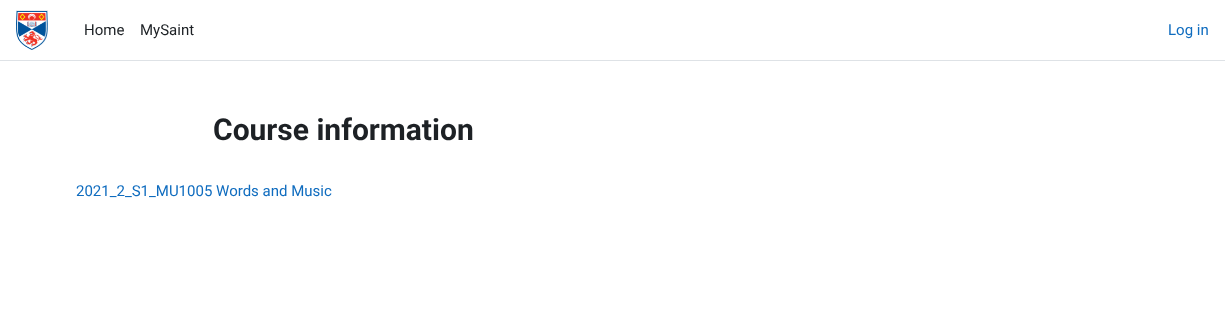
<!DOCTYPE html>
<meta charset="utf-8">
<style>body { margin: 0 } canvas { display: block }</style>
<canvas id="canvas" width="1225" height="324"></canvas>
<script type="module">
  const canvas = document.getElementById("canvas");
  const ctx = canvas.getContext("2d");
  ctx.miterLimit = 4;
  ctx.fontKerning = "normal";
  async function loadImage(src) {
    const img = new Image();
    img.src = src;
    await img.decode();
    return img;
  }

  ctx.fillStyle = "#ffffff";
  ctx.fillRect(0, 0, 1225, 324);
  ctx.fillStyle = "#dee2e6";
  ctx.fillRect(0, 60, 1225, 1);
  ctx.drawImage(await loadImage("img1.png"), 16, 10, 32, 40);
  ctx.font = "15px Roboto";
  ctx.fillStyle = "#1d2125";
  ctx.fillText("Home", 84, 35);
  ctx.fillText("MySaint", 140, 35);
  ctx.fillStyle = "#0f6cbf";
  ctx.fillText("Log in", 1168, 35);
  ctx.font = "bold 30px Roboto";
  ctx.fillStyle = "#1d2125";
  ctx.fillText("Course information", 213, 140);
  ctx.font = "15px Roboto";
  ctx.fillStyle = "#0f6cbf";
  ctx.fillText("2021_2_S1_MU1005 Words and Music", 76, 196);
</script>
